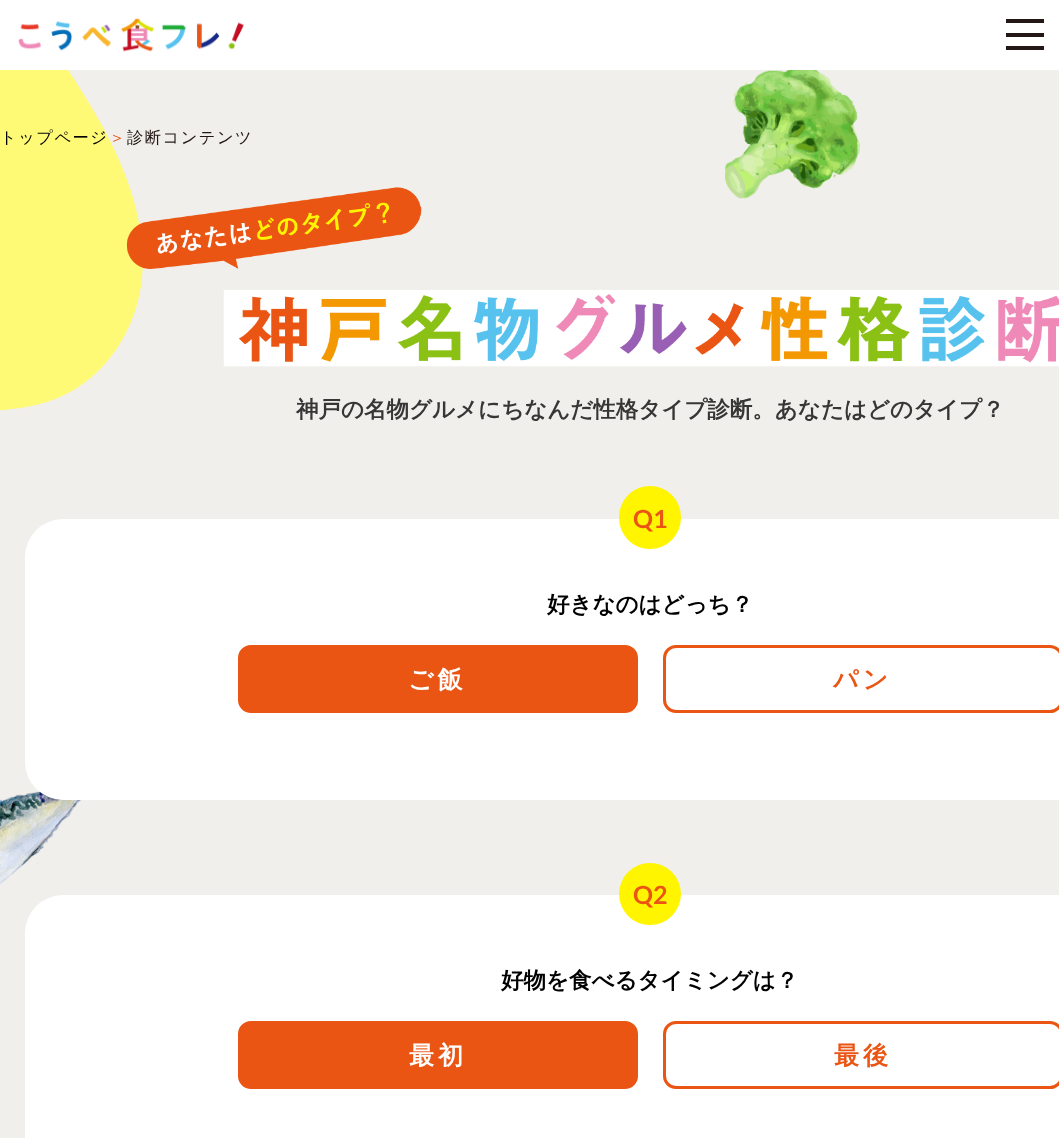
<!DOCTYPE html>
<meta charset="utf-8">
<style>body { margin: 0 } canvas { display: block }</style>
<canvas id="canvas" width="1059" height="1138"></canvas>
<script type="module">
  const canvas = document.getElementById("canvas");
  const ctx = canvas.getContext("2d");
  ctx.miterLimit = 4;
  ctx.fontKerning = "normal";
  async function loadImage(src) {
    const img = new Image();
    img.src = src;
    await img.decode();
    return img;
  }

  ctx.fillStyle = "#f0efeb";
  ctx.fillRect(0, 0, 1059, 1138);
  ctx.fillStyle = "#ffffff";
  ctx.fillRect(0, 0, 1059, 70);
  ctx.drawImage(await loadImage("img1.png"), 18, 18, 226, 34);
  ctx.fillStyle = "#231815";
  ctx.fillRect(1006, 19, 38, 4);
  ctx.fillRect(1006, 33, 38, 4);
  ctx.fillRect(1006, 46, 38, 4);
  ctx.drawImage(await loadImage("img4.png"), 0, 70, 143, 341);
  ctx.letterSpacing = "1.5px";
  ctx.font = "500 16.25px WenQuanYi Zen Hei";
  ctx.fillStyle = "#000000";
  ctx.fillText("トップページ", 0, 143);
  ctx.fillStyle = "#ea5514";
  ctx.fillText("＞", 109, 143);
  ctx.fillStyle = "#231815";
  ctx.fillText("診断コンテンツ", 127, 143);
  ctx.drawImage(await loadImage("img2.png"), 126, 187, 296, 82);
  ctx.drawImage(await loadImage("img3.png"), 223, 290, 836, 77);
  ctx.letterSpacing = "0px";
  ctx.font = "bold 22.5px WenQuanYi Zen Hei";
  ctx.fillStyle = "#363636";
  ctx.fillText("神戸の名物グルメにちなんだ性格タイプ診断。あなたはどのタイプ？", 296, 417);
  ctx.drawImage(await loadImage("img5.png"), 725, 70, 135, 129);
  ctx.drawImage(await loadImage("img6.png"), 0, 791, 86, 93);
  ctx.fillStyle = "#ffffff";
  ctx.beginPath();
  ctx.roundRect(25, 519, 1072, 281, 38);
  ctx.fill();
  ctx.fillStyle = "#fff500";
  ctx.beginPath();
  ctx.roundRect(619, 486, 62, 63, 31);
  ctx.fill();
  ctx.font = "bold 25px Lato";
  ctx.fillStyle = "#ea5514";
  ctx.fillText("Q1", 633, 528);
  ctx.font = "bold 22.5px WenQuanYi Zen Hei";
  ctx.fillStyle = "#000000";
  ctx.fillText("好きなのはどっち？", 547, 612);
  ctx.fillStyle = "#ea5514";
  ctx.beginPath();
  ctx.roundRect(239.5, 646.5, 397, 65, 11.5);
  ctx.fill();
  ctx.strokeStyle = "#ea5514";
  ctx.lineWidth = 3;
  ctx.stroke();
  ctx.letterSpacing = "4px";
  ctx.font = "bold 25px WenQuanYi Zen Hei";
  ctx.fillStyle = "#ffffff";
  ctx.fillText("ご飯", 408, 688);
  ctx.beginPath();
  ctx.roundRect(664.5, 646.5, 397, 65, 11.5);
  ctx.stroke();
  ctx.fillStyle = "#ea5514";
  ctx.fillText("パン", 833, 688);
  ctx.fillStyle = "#ffffff";
  ctx.beginPath();
  ctx.roundRect(25, 895, 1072, 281, 38);
  ctx.fill();
  ctx.fillStyle = "#fff500";
  ctx.beginPath();
  ctx.arc(650, 894, 31, 0, Math.PI * 2);
  ctx.fill();
  ctx.letterSpacing = "0px";
  ctx.font = "bold 25px Lato";
  ctx.fillStyle = "#ea5514";
  ctx.fillText("Q2", 633, 904);
  ctx.font = "bold 22.5px WenQuanYi Zen Hei";
  ctx.fillStyle = "#000000";
  ctx.fillText("好物を食べるタイミングは？", 501, 988);
  ctx.fillStyle = "#ea5514";
  ctx.beginPath();
  ctx.roundRect(239.5, 1022.5, 397, 65, 11.5);
  ctx.fill();
  ctx.stroke();
  ctx.letterSpacing = "4px";
  ctx.font = "bold 25px WenQuanYi Zen Hei";
  ctx.fillStyle = "#ffffff";
  ctx.fillText("最初", 409, 1064);
  ctx.beginPath();
  ctx.roundRect(664.5, 1022.5, 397, 65, 11.5);
  ctx.stroke();
  ctx.fillStyle = "#ea5514";
  ctx.fillText("最後", 834, 1064);
</script>
